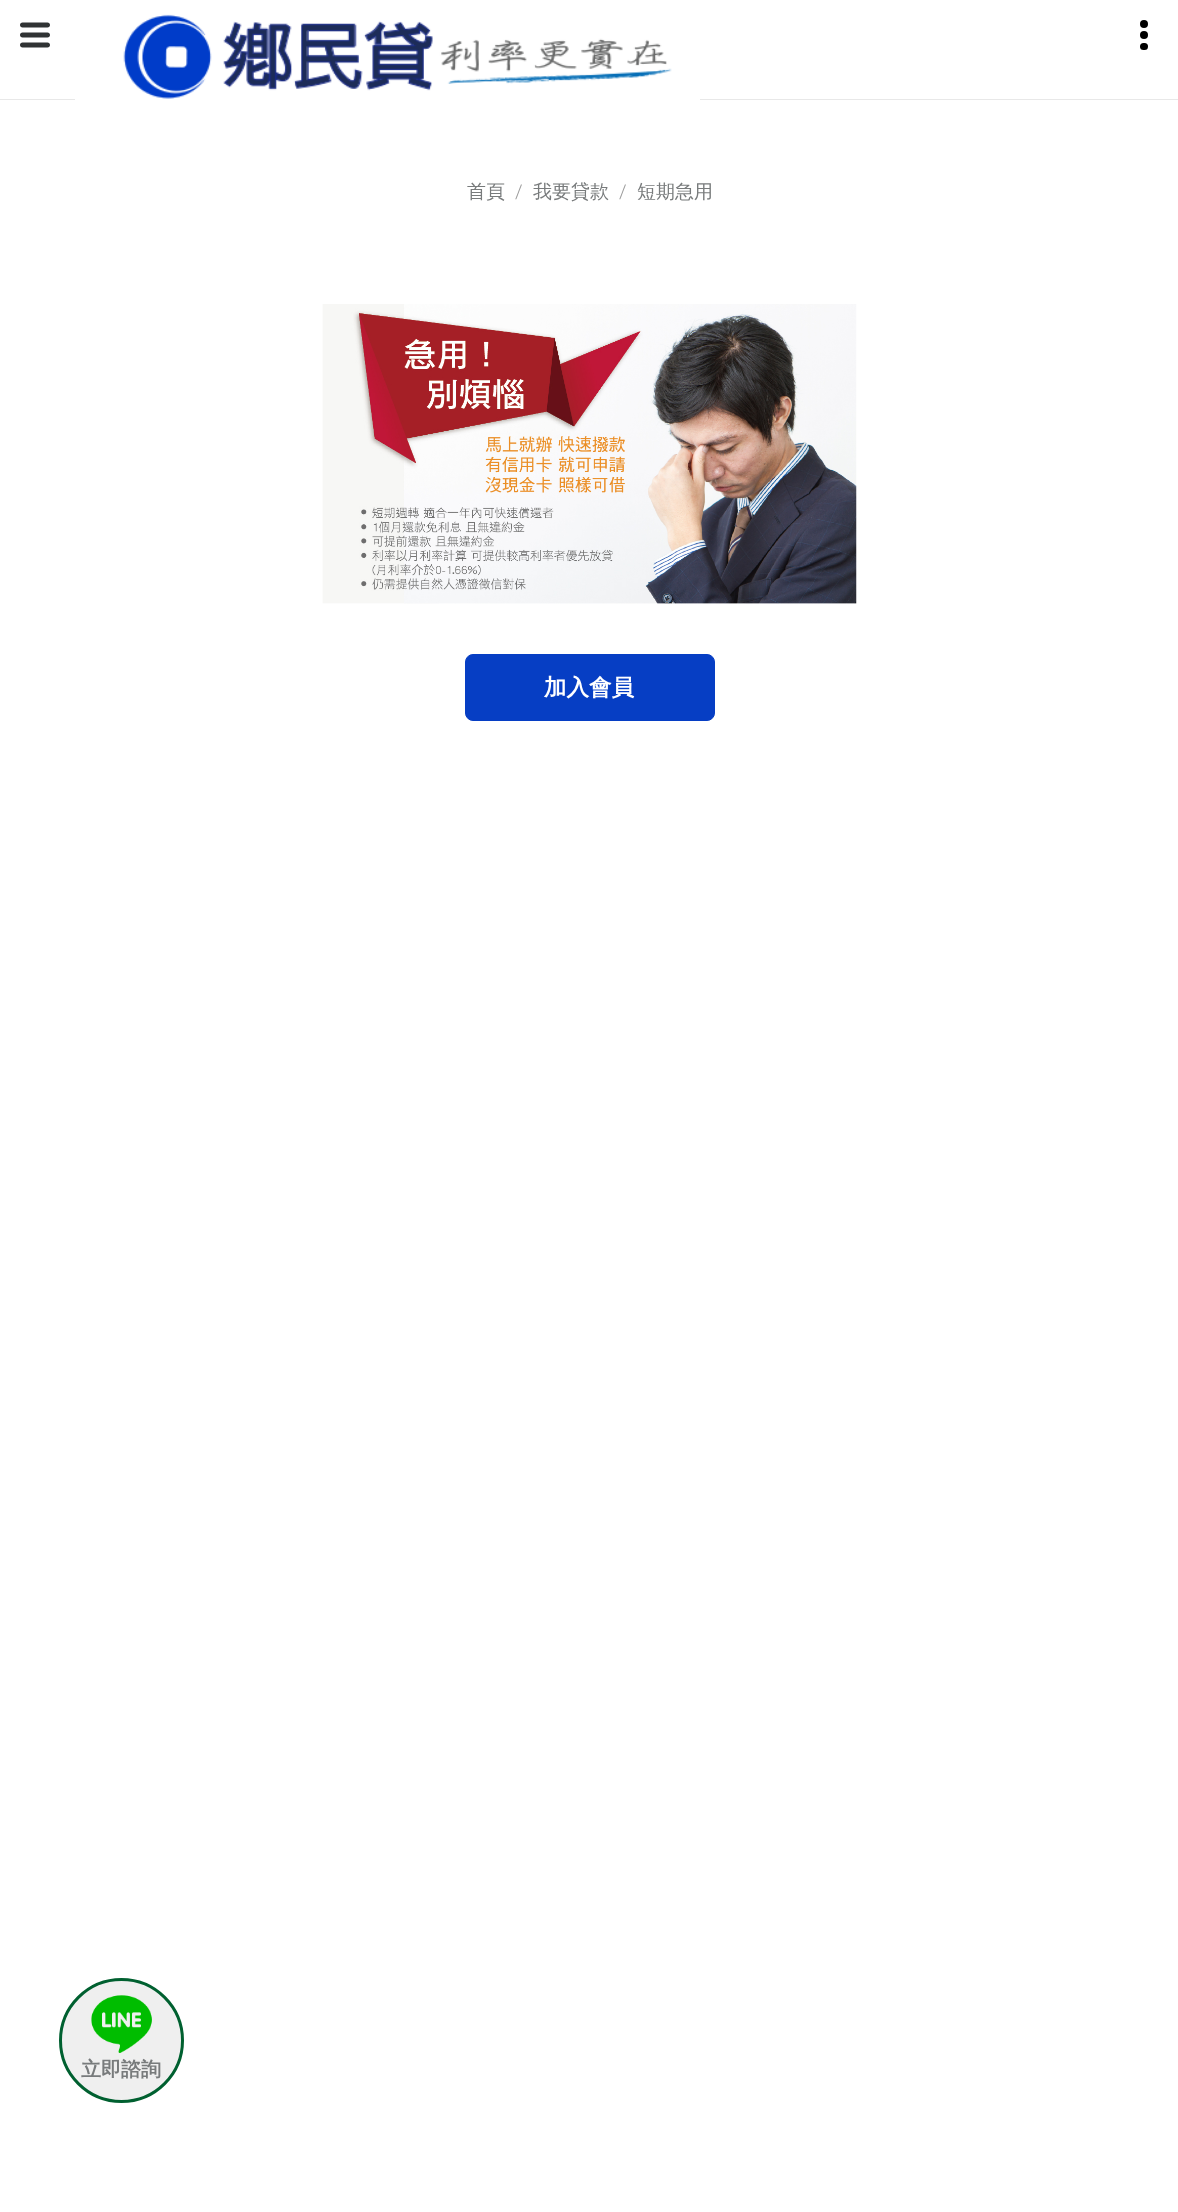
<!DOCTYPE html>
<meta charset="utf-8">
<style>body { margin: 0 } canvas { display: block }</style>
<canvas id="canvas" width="1178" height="2212"></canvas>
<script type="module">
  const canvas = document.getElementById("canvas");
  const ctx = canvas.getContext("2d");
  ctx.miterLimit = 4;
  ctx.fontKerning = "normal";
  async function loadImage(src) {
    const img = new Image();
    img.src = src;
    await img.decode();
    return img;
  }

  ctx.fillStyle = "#ffffff";
  ctx.fillRect(0, 0, 1178, 2212);
  ctx.fillStyle = "#303334";
  ctx.beginPath();
  ctx.moveTo(47.5, 37.5);
  ctx.lineTo(22.5, 37.5);
  ctx.bezierCurveTo(21, 37.5, 20, 36.5, 20, 35);
  ctx.bezierCurveTo(20, 33.5, 21, 32.5, 22.5, 32.5);
  ctx.lineTo(47.5, 32.5);
  ctx.bezierCurveTo(49, 32.5, 50, 33.5, 50, 35);
  ctx.bezierCurveTo(50, 36.5, 49, 37.5, 47.5, 37.5);
  ctx.closePath();
  ctx.moveTo(47.5, 47.5);
  ctx.lineTo(22.5, 47.5);
  ctx.bezierCurveTo(21, 47.5, 20, 46.5, 20, 45);
  ctx.bezierCurveTo(20, 43.5, 21, 42.5, 22.5, 42.5);
  ctx.lineTo(47.5, 42.5);
  ctx.bezierCurveTo(49, 42.5, 50, 43.5, 50, 45);
  ctx.bezierCurveTo(50, 46.5, 49, 47.5, 47.5, 47.5);
  ctx.closePath();
  ctx.moveTo(47.5, 27.5);
  ctx.lineTo(22.5, 27.5);
  ctx.bezierCurveTo(21, 27.5, 20, 26.5, 20, 25);
  ctx.bezierCurveTo(20, 23.5, 21, 22.5, 22.5, 22.5);
  ctx.lineTo(47.5, 22.5);
  ctx.bezierCurveTo(49, 22.5, 50, 23.5, 50, 25);
  ctx.bezierCurveTo(50, 26.5, 49, 27.5, 47.5, 27.5);
  ctx.closePath();
  ctx.fill();
  ctx.fillStyle = "#e8e8e8";
  ctx.fillRect(0, 99, 1178, 1);
  ctx.drawImage(await loadImage("img1.png"), 75, 14, 625, 86);
  ctx.fillStyle = "#000000";
  ctx.beginPath();
  ctx.arc(1144, 35, 4, 0, Math.PI * 2);
  ctx.fill();
  ctx.beginPath();
  ctx.arc(1144, 24, 4, 0, Math.PI * 2);
  ctx.fill();
  ctx.beginPath();
  ctx.roundRect(1140, 43, 8, 7, 3.5);
  ctx.fill();
  ctx.font = "500 19px WenQuanYi Zen Hei";
  ctx.fillStyle = "#787b7c";
  ctx.fillText("首頁", 467, 198);
  ctx.font = "300 19px Roboto";
  ctx.fillStyle = "#9a9a9a";
  ctx.fillText("/", 515, 198);
  ctx.font = "500 19px WenQuanYi Zen Hei";
  ctx.fillStyle = "#787b7c";
  ctx.fillText("我要貸款", 533, 198);
  ctx.font = "300 19px Roboto";
  ctx.fillStyle = "#9a9a9a";
  ctx.fillText("/", 619, 198);
  ctx.font = "500 19px WenQuanYi Zen Hei";
  ctx.fillStyle = "#787b7c";
  ctx.fillText("短期急用", 637, 198);
  ctx.drawImage(await loadImage("img2.png"), 322, 304, 535, 300);
  ctx.fillStyle = "#063ec4";
  ctx.beginPath();
  ctx.roundRect(465.5, 654.5, 249, 66, 7.5);
  ctx.fill();
  ctx.strokeStyle = "#063ec4";
  ctx.stroke();
  ctx.font = "bold 22.5px WenQuanYi Zen Hei";
  ctx.fillStyle = "#ffffff";
  ctx.fillText("加入會員", 544, 695);
  ctx.fillStyle = "#efefef";
  ctx.beginPath();
  ctx.arc(121.5, 2040.5, 61, 0, Math.PI * 2);
  ctx.fill();
  ctx.strokeStyle = "#006030";
  ctx.lineWidth = 3;
  ctx.stroke();
  ctx.drawImage(await loadImage("img3.png"), 91, 1995, 61, 58);
  ctx.font = "bold 20px WenQuanYi Zen Hei";
  ctx.fillStyle = "#787b7c";
  ctx.fillText("立即諮詢", 81, 2076);
</script>
